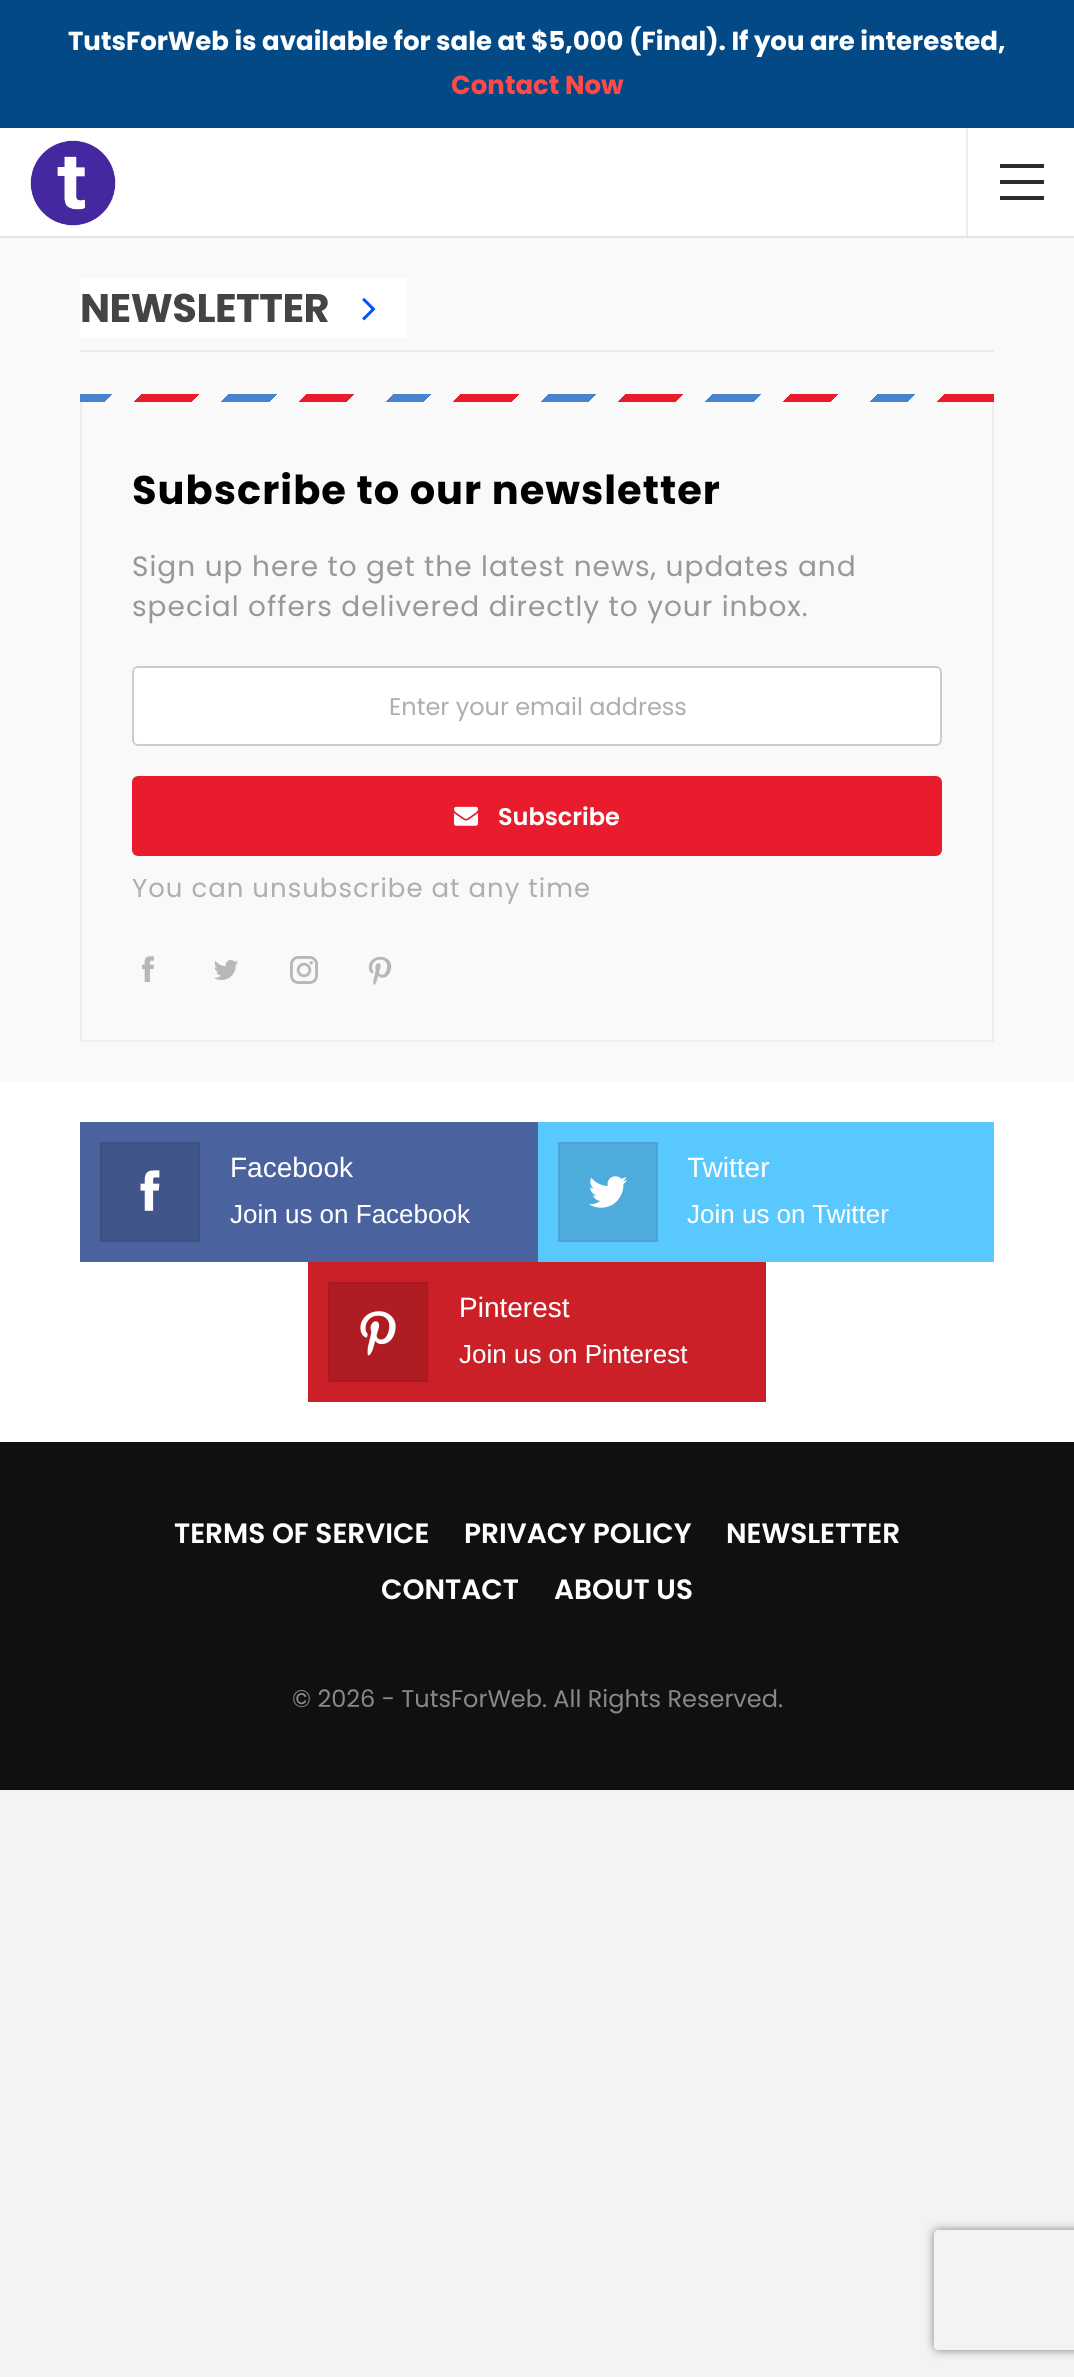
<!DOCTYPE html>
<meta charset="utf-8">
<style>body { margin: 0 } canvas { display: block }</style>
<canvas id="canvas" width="1074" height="2377"></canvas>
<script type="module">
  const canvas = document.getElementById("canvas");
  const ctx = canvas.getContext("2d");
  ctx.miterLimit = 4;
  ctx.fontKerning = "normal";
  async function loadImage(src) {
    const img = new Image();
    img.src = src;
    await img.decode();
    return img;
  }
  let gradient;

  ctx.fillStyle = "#f3f3f3";
  ctx.fillRect(0, 0, 1074, 2377);
  ctx.fillStyle = "#024985";
  ctx.fillRect(0, 0, 1074, 128);
  ctx.font = "bold 26px Poppins";
  ctx.fillStyle = "#ffffff";
  ctx.fillText("TutsForWeb is available for sale at $5,000 (Final). If you are interested,", 68, 50);
  ctx.fillStyle = "#ff4a4a";
  ctx.fillText("Contact Now", 451, 94);
  ctx.fillStyle = "#f9f9f9";
  ctx.fillRect(0, 238, 1074, 844);
  ctx.fillStyle = "#ffffff";
  ctx.fillRect(0, 128, 1074, 108);
  ctx.fillStyle = "#e5e5e5";
  ctx.fillRect(0, 236, 1074, 2);
  ctx.drawImage(await loadImage("img1.png"), 30, 140, 86, 86);
  ctx.fillStyle = "#ededed";
  ctx.fillRect(966, 128, 2, 108);
  ctx.fillStyle = "#2c2c2c";
  ctx.fillRect(1000, 180, 44, 4);
  ctx.fillRect(1000, 164, 44, 4);
  ctx.fillRect(1000, 196, 44, 4);
  ctx.fillStyle = "#ffffff";
  ctx.fillRect(80, 278, 326, 60);
  ctx.letterSpacing = "-0.5px";
  ctx.font = "bold 40px Poppins";
  ctx.fillStyle = "#444444";
  ctx.fillText("NEWSLETTER", 80, 322);
  ctx.drawImage(await loadImage("img2.png"), 362, 298, 14, 23);
  ctx.fillStyle = "#ededed";
  ctx.fillRect(80, 350, 914, 2);
  ctx.fillStyle = "#eeeeee";
  ctx.fillRect(992, 396, 2, 646);
  ctx.fillRect(80, 1040, 914, 2);
  ctx.fillRect(80, 396, 2, 646);
  gradient = ctx.createLinearGradient(768, 629, 284, 145);
  gradient.addColorStop(0, "#e91c2e");
  gradient.addColorStop(0.06, "#e91c2e");
  gradient.addColorStop(0.06, "rgba(233, 28, 46, 0)");
  gradient.addColorStop(0.09, "rgba(72, 130, 206, 0)");
  gradient.addColorStop(0.09, "#4882ce");
  gradient.addColorStop(0.13, "#4882ce");
  gradient.addColorStop(0.13, "rgba(72, 130, 206, 0)");
  gradient.addColorStop(0.17, "rgba(233, 28, 46, 0)");
  gradient.addColorStop(0.17, "#e91c2e");
  gradient.addColorStop(0.22, "#e91c2e");
  gradient.addColorStop(0.22, "rgba(233, 28, 46, 0)");
  gradient.addColorStop(0.25, "rgba(72, 130, 206, 0)");
  gradient.addColorStop(0.25, "#4882ce");
  gradient.addColorStop(0.3, "#4882ce");
  gradient.addColorStop(0.3, "rgba(72, 130, 206, 0)");
  gradient.addColorStop(0.33, "rgba(233, 28, 46, 0)");
  gradient.addColorStop(0.33, "#e91c2e");
  gradient.addColorStop(0.39, "#e91c2e");
  gradient.addColorStop(0.39, "rgba(233, 28, 46, 0)");
  gradient.addColorStop(0.42, "rgba(72, 130, 206, 0)");
  gradient.addColorStop(0.42, "#4882ce");
  gradient.addColorStop(0.47, "#4882ce");
  gradient.addColorStop(0.47, "rgba(72, 130, 206, 0)");
  gradient.addColorStop(0.5, "rgba(233, 28, 46, 0)");
  gradient.addColorStop(0.5, "#e91c2e");
  gradient.addColorStop(0.56, "#e91c2e");
  gradient.addColorStop(0.56, "rgba(233, 28, 46, 0)");
  gradient.addColorStop(0.59, "rgba(72, 130, 206, 0)");
  gradient.addColorStop(0.59, "#4882ce");
  gradient.addColorStop(0.63, "#4882ce");
  gradient.addColorStop(0.63, "rgba(72, 130, 206, 0)");
  gradient.addColorStop(0.67, "rgba(233, 28, 46, 0)");
  gradient.addColorStop(0.67, "#e91c2e");
  gradient.addColorStop(0.72, "#e91c2e");
  gradient.addColorStop(0.72, "rgba(233, 28, 46, 0)");
  gradient.addColorStop(0.75, "rgba(72, 130, 206, 0)");
  gradient.addColorStop(0.75, "#4882ce");
  gradient.addColorStop(0.8, "#4882ce");
  gradient.addColorStop(0.8, "rgba(72, 130, 206, 0)");
  gradient.addColorStop(0.83, "rgba(233, 28, 46, 0)");
  gradient.addColorStop(0.83, "#e91c2e");
  gradient.addColorStop(0.89, "#e91c2e");
  gradient.addColorStop(0.89, "rgba(233, 28, 46, 0)");
  gradient.addColorStop(0.92, "rgba(72, 130, 206, 0)");
  gradient.addColorStop(0.92, "#4882ce");
  gradient.addColorStop(0.97, "#4882ce");
  gradient.addColorStop(0.97, "rgba(72, 130, 206, 0)");
  gradient.addColorStop(1, "rgba(0, 0, 0, 0)");
  ctx.fillStyle = gradient;
  ctx.fillRect(80, 394, 914, 8);
  ctx.letterSpacing = "1px";
  ctx.fillStyle = "#000000";
  ctx.fillText("Subscribe to our newsletter", 132, 504);
  ctx.font = "28px Poppins";
  ctx.fillStyle = "#989898";
  ctx.fillText("Sign up here to get the latest news, updates and", 132, 576);
  ctx.fillText("special offers delivered directly to your inbox.", 132, 616);
  ctx.fillStyle = "#ffffff";
  ctx.beginPath();
  ctx.roundRect(133, 667, 808, 78, 5);
  ctx.fill();
  ctx.strokeStyle = "#cccccc";
  ctx.lineWidth = 2;
  ctx.stroke();
  ctx.letterSpacing = "0px";
  ctx.font = "24px Poppins";
  ctx.fillStyle = "#afafaf";
  ctx.fillText("Enter your email address", 389, 715);
  ctx.fillStyle = "#e91c2e";
  ctx.beginPath();
  ctx.roundRect(132, 776, 810, 80, 6);
  ctx.fill();
  ctx.drawImage(await loadImage("img3.png"), 454, 806, 24, 20);
  ctx.font = "600 24px Poppins";
  ctx.fillStyle = "#ffffff";
  ctx.fillText("Subscribe", 498, 825);
  ctx.letterSpacing = "1px";
  ctx.font = "26px Poppins";
  ctx.fillStyle = "#afafaf";
  ctx.fillText("You can unsubscribe at any time", 132, 897);
  ctx.drawImage(await loadImage("img4.png"), 142, 956, 12, 26);
  ctx.drawImage(await loadImage("img5.png"), 214, 960, 24, 20);
  ctx.drawImage(await loadImage("img6.png"), 290, 956, 28, 28);
  ctx.drawImage(await loadImage("img7.png"), 368, 956, 24, 29);
  ctx.fillStyle = "#ffffff";
  ctx.fillRect(0, 1082, 1074, 360);
  ctx.fillStyle = "#4a639f";
  ctx.fillRect(80, 1122, 458, 140);
  ctx.fillStyle = "#405589";
  ctx.beginPath();
  ctx.rect(101, 1143, 98, 98);
  ctx.fill();
  ctx.strokeStyle = "#3d5182";
  ctx.stroke();
  ctx.drawImage(await loadImage("img8.png"), 140, 1170, 20, 41);
  ctx.letterSpacing = "0px";
  ctx.font = "28px Liberation Sans";
  ctx.fillStyle = "#ffffff";
  ctx.fillText("Facebook", 230, 1177);
  ctx.font = "26px Liberation Sans";
  ctx.fillText("Join us on Facebook", 230, 1223);
  ctx.fillStyle = "#59c8ff";
  ctx.fillRect(538, 1122, 456, 140);
  ctx.fillStyle = "#4dacdb";
  ctx.beginPath();
  ctx.rect(559, 1143, 98, 98);
  ctx.fill();
  ctx.strokeStyle = "#49a3d0";
  ctx.stroke();
  ctx.drawImage(await loadImage("img9.png"), 588, 1176, 40, 32);
  ctx.save();
  ctx.beginPath();
  ctx.rect(688, 1146, 286, 46);
  ctx.clip();
  ctx.font = "28px Liberation Sans";
  ctx.fillStyle = "#ffffff";
  ctx.fillText("Twitter", 687, 1177);
  ctx.restore();
  ctx.fillStyle = "#ffffff";
  ctx.fillText("Join us on Twitter", 687, 1223);
  ctx.fillStyle = "#cb2027";
  ctx.fillRect(308, 1262, 458, 140);
  ctx.fillStyle = "#af1c22";
  ctx.beginPath();
  ctx.rect(329, 1283, 98, 98);
  ctx.fill();
  ctx.strokeStyle = "#a61b20";
  ctx.stroke();
  ctx.drawImage(await loadImage("img10.png"), 360, 1311, 36, 45);
  ctx.font = "28px Liberation Sans";
  ctx.fillStyle = "#ffffff";
  ctx.fillText("Pinterest", 459, 1317);
  ctx.font = "26px Liberation Sans";
  ctx.fillText("Join us on Pinterest", 459, 1363);
  ctx.fillStyle = "#101010";
  ctx.fillRect(0, 1442, 1074, 348);
  ctx.font = "600 28px Poppins";
  ctx.fillStyle = "#ffffff";
  ctx.fillText("TERMS OF SERVICE", 174, 1543);
  ctx.fillText("PRIVACY POLICY", 464, 1543);
  ctx.fillText("NEWSLETTER", 726, 1543);
  ctx.fillText("CONTACT", 381, 1599);
  ctx.fillText("ABOUT US", 554, 1599);
  ctx.font = "24px Poppins";
  ctx.fillStyle = "#888888";
  ctx.fillText("© 2026 - TutsForWeb. All Rights Reserved.", 292, 1707);
  ctx.save();
  ctx.beginPath();
  ctx.moveTo(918, 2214);
  ctx.lineTo(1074, 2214);
  ctx.lineTo(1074, 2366);
  ctx.lineTo(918, 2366);
  ctx.closePath();
  ctx.moveTo(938, 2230);
  ctx.lineTo(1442, 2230);
  ctx.bezierCurveTo(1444, 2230, 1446, 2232, 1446, 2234);
  ctx.lineTo(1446, 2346);
  ctx.bezierCurveTo(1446, 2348, 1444, 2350, 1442, 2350);
  ctx.lineTo(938, 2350);
  ctx.bezierCurveTo(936, 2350, 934, 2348, 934, 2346);
  ctx.lineTo(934, 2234);
  ctx.bezierCurveTo(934, 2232, 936, 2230, 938, 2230);
  ctx.closePath();
  ctx.clip("evenodd");
  ctx.fillStyle = "#808080";
  ctx.filter = "blur(5px)";
  ctx.beginPath();
  ctx.roundRect(934, 2230, 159, 120, 4);
  ctx.fill();
  ctx.filter = "none";
  ctx.restore();
</script>
